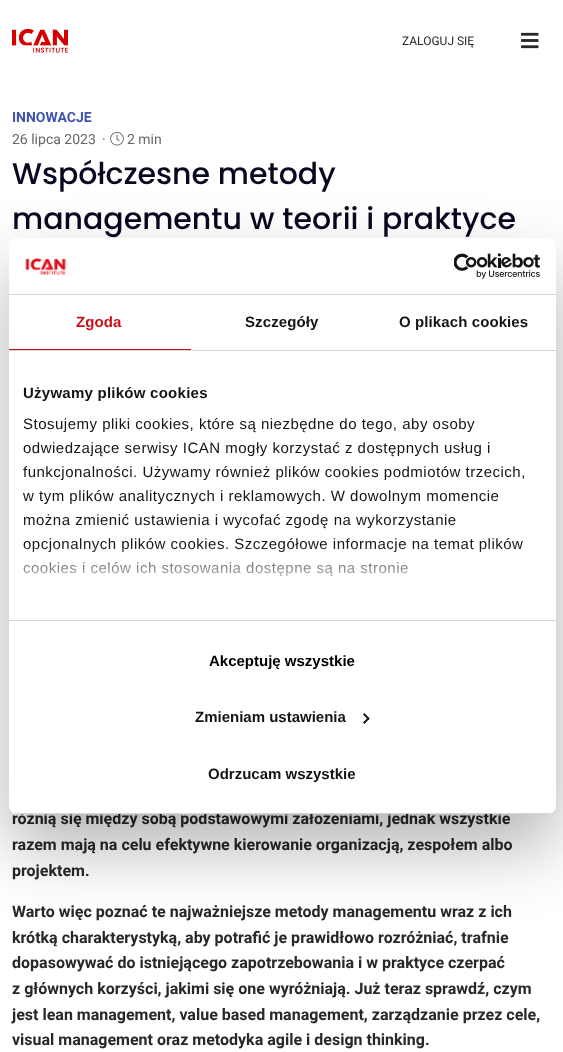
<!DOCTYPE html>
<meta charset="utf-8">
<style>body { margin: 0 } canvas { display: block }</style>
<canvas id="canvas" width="563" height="1052"></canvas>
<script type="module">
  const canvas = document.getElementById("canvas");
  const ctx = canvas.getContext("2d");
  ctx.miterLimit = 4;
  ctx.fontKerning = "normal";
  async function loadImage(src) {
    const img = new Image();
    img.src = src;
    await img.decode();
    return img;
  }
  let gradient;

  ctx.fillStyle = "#ffffff";
  ctx.fillRect(0, 0, 563, 1052);
  ctx.drawImage(await loadImage("img1.png"), 12, 29, 56, 24);
  ctx.font = "12px Roboto";
  ctx.fillStyle = "#282828";
  ctx.fillText("ZALOGUJ SIĘ", 402, 45);
  ctx.drawImage(await loadImage("img2.png"), 521, 32, 18, 17);
  ctx.font = "bold 14px Roboto";
  ctx.fillStyle = "#4154b1";
  ctx.fillText("INNOWACJE", 12, 122);
  ctx.font = "14px Roboto";
  ctx.fillStyle = "#676767";
  ctx.fillText("26 lipca 2023", 12, 144);
  ctx.fillText("·", 102, 144);
  ctx.drawImage(await loadImage("img3.png"), 110, 132, 14, 14);
  ctx.fillText("2 min", 127, 144);
  ctx.font = "500 30px Poppins";
  ctx.fillStyle = "#080920";
  ctx.fillText("Współczesne metody", 12, 184);
  ctx.fillText("managementu w teorii i praktyce", 12, 229);
  ctx.font = "bold 16px Roboto";
  ctx.fillStyle = "#282828";
  ctx.fillText("różnią się między sobą podstawowymi założeniami, jednak wszystkie", 12, 824);
  ctx.fillText("razem mają na celu efektywne kierowanie organizacją, zespołem albo", 12, 850);
  ctx.fillText("projektem.", 12, 876);
  ctx.fillText("Warto więc poznać te najważniejsze metody managementu wraz z ich", 12, 917);
  ctx.fillText("krótką charakterystyką, aby potrafić je prawidłowo rozróżniać, trafnie", 12, 943);
  ctx.fillText("dopasowywać do istniejącego zapotrzebowania i w praktyce czerpać", 12, 968);
  ctx.fillText("z głównych korzyści, jakimi się one wyróżniają. Już teraz sprawdź, czym", 12, 994);
  ctx.fillText("jest lean management, value based management, zarządzanie przez cele,", 12, 1020);
  ctx.fillText("visual management oraz metodyka agile i design thinking.", 12, 1045);
  ctx.fillStyle = "rgba(0, 0, 0, 0.3)";
  ctx.filter = "blur(34px)";
  ctx.beginPath();
  ctx.roundRect(9, 270, 547, 576, 8);
  ctx.fill();
  ctx.filter = "none";
  ctx.fillStyle = "#ffffff";
  ctx.beginPath();
  ctx.roundRect(9, 238, 547, 576, 8);
  ctx.fill();
  ctx.fillStyle = "#d6d6d6";
  ctx.fillRect(9, 294, 547, 1);
  ctx.drawImage(await loadImage("img4.png"), 25, 258, 42, 18);
  ctx.drawImage(await loadImage("img5.png"), 454, 253, 86, 26);
  ctx.fillRect(9, 350, 547, 1);
  ctx.fillStyle = "#c70f19";
  ctx.fillRect(9, 349, 182, 1);
  ctx.letterSpacing = "0.1px";
  ctx.font = "bold 15px Liberation Sans";
  ctx.fillText("Zgoda", 76, 327);
  ctx.fillStyle = "#141414";
  ctx.fillText("Szczegóły", 245, 327);
  ctx.fillText("O plikach cookies", 399, 327);
  ctx.fillStyle = "#d6d6d6";
  ctx.fillRect(9, 620, 547, 1);
  ctx.letterSpacing = "0.25px";
  ctx.fillStyle = "#141414";
  ctx.fillText("Używamy plików cookies", 23, 398);
  ctx.letterSpacing = "0.5px";
  ctx.font = "15px Liberation Sans";
  ctx.fillText("Stosujemy pliki cookies, które są niezbędne do tego, aby osoby", 23, 429);
  ctx.fillText("odwiedzające serwisy ICAN mogły korzystać z dostępnych usług i", 23, 453);
  ctx.fillText("funkcjonalności. Używamy również plików cookies podmiotów trzecich,", 23, 477);
  ctx.fillText("w tym plików analitycznych i reklamowych. W dowolnym momencie", 23, 501);
  ctx.fillText("można zmienić ustawienia i wycofać zgodę na wykorzystanie", 23, 525);
  ctx.fillText("opcjonalnych plików cookies. Szczegółowe informacje na temat plików", 23, 549);
  ctx.fillText("cookies i celów ich stosowania dostępne są na stronie", 23, 573);
  gradient = ctx.createLinearGradient(276, 620, 276, 545);
  gradient.addColorStop(0, "#ffffff");
  gradient.addColorStop(0.5, "rgba(255, 255, 255, 0.8)");
  gradient.addColorStop(1, "rgba(255, 255, 255, 0)");
  ctx.fillStyle = gradient;
  ctx.fillRect(23, 546, 499, 31);
  ctx.save();
  ctx.beginPath();
  ctx.roundRect(9, 238, 547, 576, 8);
  ctx.clip();
  ctx.fillStyle = "#d6d6d6";
  ctx.fillRect(9, 813, 547, 1);
  ctx.restore();
  ctx.letterSpacing = "0px";
  ctx.font = "bold 15px Liberation Sans";
  ctx.fillStyle = "#000000";
  ctx.fillText("Akceptuję wszystkie", 209, 666);
  ctx.fillStyle = "#141414";
  ctx.fillText("Zmieniam ustawienia", 195, 722);
  ctx.beginPath();
  ctx.moveTo(364.5, 713);
  ctx.lineTo(369.5, 718.5);
  ctx.lineTo(368.5, 720);
  ctx.lineTo(363, 714.5);
  ctx.closePath();
  ctx.fill();
  ctx.beginPath();
  ctx.moveTo(368.5, 717);
  ctx.lineTo(369.5, 718.5);
  ctx.lineTo(364.5, 724);
  ctx.lineTo(363, 722.5);
  ctx.closePath();
  ctx.fill();
  ctx.fillText("Odrzucam wszystkie", 208, 779);
</script>
